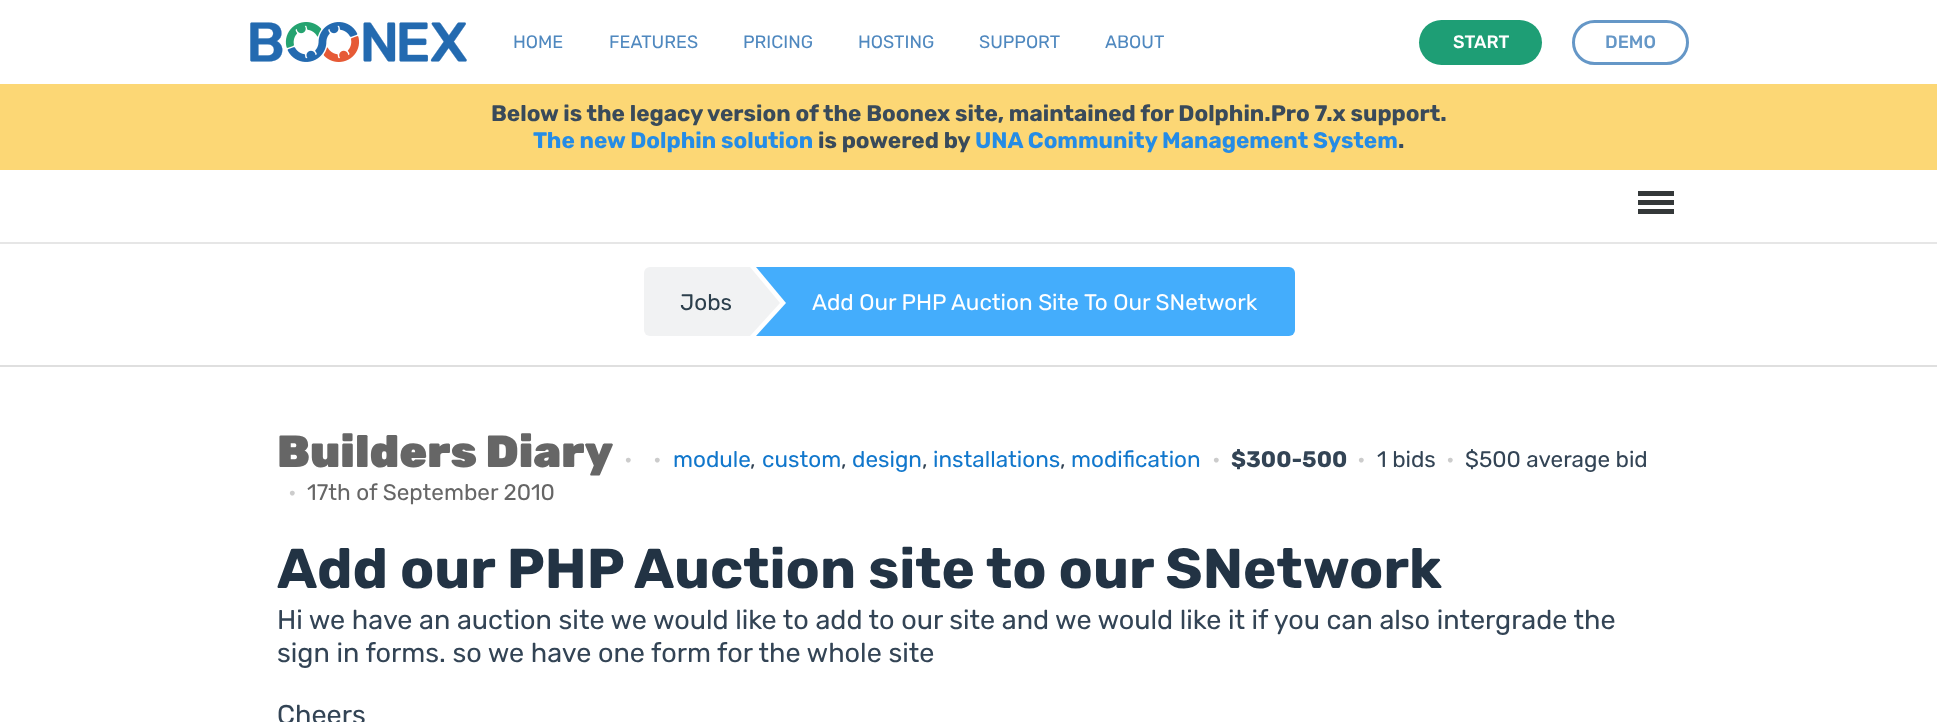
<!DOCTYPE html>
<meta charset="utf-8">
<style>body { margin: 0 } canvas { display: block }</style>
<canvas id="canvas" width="1937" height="722"></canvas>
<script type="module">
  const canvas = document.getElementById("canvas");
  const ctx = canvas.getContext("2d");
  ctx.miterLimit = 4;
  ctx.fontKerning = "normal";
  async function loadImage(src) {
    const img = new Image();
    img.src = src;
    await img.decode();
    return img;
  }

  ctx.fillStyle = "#ffffff";
  ctx.fillRect(0, 0, 1937, 722);
  ctx.fillStyle = "#e6e6e6";
  ctx.fillRect(0, 242, 1937, 2);
  ctx.drawImage(await loadImage("img1.png"), 250, 22, 217, 40);
  ctx.font = "18px Rubik";
  ctx.fillStyle = "#4f88bf";
  ctx.fillText("HOME", 513, 48);
  ctx.fillText("FEATURES", 609, 48);
  ctx.fillText("PRICING", 743, 48);
  ctx.fillText("HOSTING", 858, 48);
  ctx.fillText("SUPPORT", 979, 48);
  ctx.fillText("ABOUT", 1105, 48);
  ctx.fillStyle = "#1e9e75";
  ctx.beginPath();
  ctx.roundRect(1419, 20, 123, 45, 22.5);
  ctx.fill();
  ctx.font = "500 18px Rubik";
  ctx.fillStyle = "#ffffff";
  ctx.fillText("START", 1453, 48);
  ctx.beginPath();
  ctx.roundRect(1573.5, 21.5, 114, 42, 21);
  ctx.strokeStyle = "#6597c7";
  ctx.lineWidth = 3;
  ctx.stroke();
  ctx.fillStyle = "#6597c7";
  ctx.fillText("DEMO", 1605, 48);
  ctx.fillStyle = "#fcd775";
  ctx.fillRect(0, 84, 1937, 86);
  ctx.font = "bold 22.5px Rubik";
  ctx.fillStyle = "#394a5a";
  ctx.fillText("Below is the legacy version of the Boonex site, maintained for Dolphin.Pro 7.x support.", 491, 121);
  ctx.fillStyle = "#258ce6";
  ctx.fillText("The new Dolphin solution", 533, 148);
  ctx.fillStyle = "#394a5a";
  ctx.fillText("is powered by", 818, 148);
  ctx.fillStyle = "#258ce6";
  ctx.fillText("UNA Community Management System", 975, 148);
  ctx.fillStyle = "#394a5a";
  ctx.fillText(".", 1398, 148);
  ctx.fillStyle = "#343839";
  ctx.fillRect(1638, 200, 36, 5);
  ctx.fillRect(1638, 191, 36, 5);
  ctx.fillRect(1638, 209, 36, 5);
  ctx.fillStyle = "#dfdfdf";
  ctx.fillRect(0, 365, 1937, 2);
  ctx.fillStyle = "#f1f2f3";
  ctx.beginPath();
  ctx.roundRect(644, 267, 106, 69, [6, 0, 0, 6]);
  ctx.fill();
  ctx.font = "22.5px Rubik";
  ctx.fillStyle = "#2c3f4c";
  ctx.fillText("Jobs", 680, 310);
  ctx.fillStyle = "#44adfc";
  ctx.beginPath();
  ctx.roundRect(756, 267, 539, 69, [0, 6, 6, 0]);
  ctx.fill();
  ctx.fillStyle = "#ffffff";
  ctx.beginPath();
  ctx.moveTo(756, 336);
  ctx.lineTo(756, 267);
  ctx.lineTo(786, 303);
  ctx.closePath();
  ctx.fill();
  ctx.fillStyle = "#f1f2f3";
  ctx.beginPath();
  ctx.moveTo(750, 336);
  ctx.lineTo(750, 267);
  ctx.lineTo(780, 303);
  ctx.closePath();
  ctx.fill();
  ctx.fillStyle = "#ffffff";
  ctx.fillText("Add Our PHP Auction Site To Our SNetwork", 812, 310);
  ctx.font = "900 45px Rubik";
  ctx.fillStyle = "#666666";
  ctx.fillText("Builders Diary", 277, 467);
  ctx.font = "22.5px Rubik";
  ctx.fillStyle = "#cccccc";
  ctx.fillText("•", 624, 467);
  ctx.fillText("•", 653, 467);
  ctx.fillStyle = "#1177cc";
  ctx.fillText("module", 673, 467);
  ctx.fillStyle = "#334455";
  ctx.fillText(",", 750, 467);
  ctx.fillStyle = "#1177cc";
  ctx.fillText("custom", 762, 467);
  ctx.fillStyle = "#334455";
  ctx.fillText(",", 841, 467);
  ctx.fillStyle = "#1177cc";
  ctx.fillText("design", 852, 467);
  ctx.fillStyle = "#334455";
  ctx.fillText(",", 922, 467);
  ctx.fillStyle = "#1177cc";
  ctx.fillText("installations", 933, 467);
  ctx.fillStyle = "#334455";
  ctx.fillText(",", 1060, 467);
  ctx.fillStyle = "#1177cc";
  ctx.fillText("modification", 1071, 467);
  ctx.fillStyle = "#cccccc";
  ctx.fillText("•", 1212, 467);
  ctx.font = "bold 22.5px Rubik";
  ctx.fillStyle = "#334455";
  ctx.fillText("$300-500", 1231, 467);
  ctx.font = "22.5px Rubik";
  ctx.fillStyle = "#cccccc";
  ctx.fillText("•", 1357, 467);
  ctx.fillStyle = "#334455";
  ctx.fillText("1 bids", 1377, 467);
  ctx.fillStyle = "#cccccc";
  ctx.fillText("•", 1446, 467);
  ctx.fillStyle = "#334455";
  ctx.fillText("$500 average bid", 1465, 467);
  ctx.fillStyle = "#cccccc";
  ctx.fillText("•", 288, 500);
  ctx.fillStyle = "#666666";
  ctx.fillText("17th of September 2010", 307, 500);
  ctx.font = "bold 56.25px Rubik";
  ctx.fillStyle = "#223344";
  ctx.fillText("Add our PHP Auction site to our SNetwork", 277, 588);
  ctx.font = "27px Rubik";
  ctx.fillStyle = "#334455";
  ctx.fillText("Hi we have an auction site we would like to add to our site and we would like it if you can also intergrade the", 277, 629);
  ctx.fillText("sign in forms. so we have one form for the whole site", 277, 662);
  ctx.fillText("Cheers", 277, 724);
</script>
